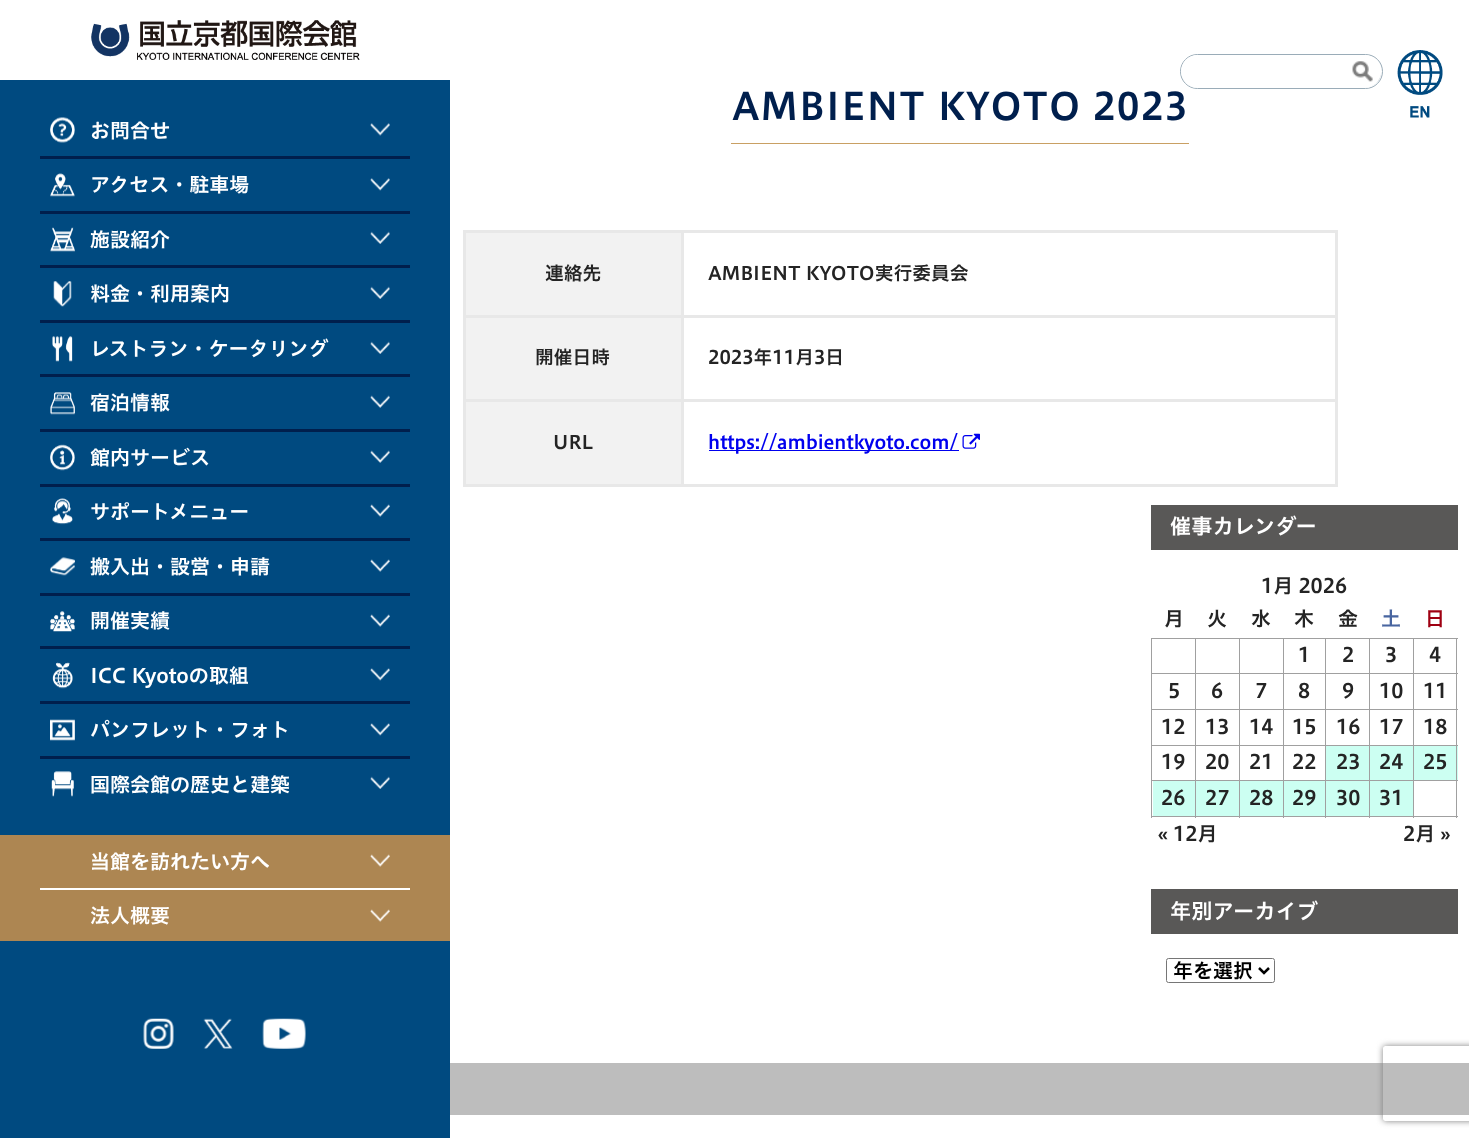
<!DOCTYPE html>
<meta charset="utf-8">
<style>body { margin: 0 } canvas { display: block }</style>
<canvas id="canvas" width="1469" height="1138"></canvas>
<script type="module">
  const canvas = document.getElementById("canvas");
  const ctx = canvas.getContext("2d");
  ctx.miterLimit = 4;
  ctx.fontKerning = "normal";
  async function loadImage(src) {
    const img = new Image();
    img.src = src;
    await img.decode();
    return img;
  }

  ctx.fillStyle = "#ffffff";
  ctx.fillRect(0, 0, 1469, 1138);
  ctx.fillStyle = "#cdd6dc";
  ctx.beginPath();
  ctx.moveTo(1181, 71);
  ctx.bezierCurveTo(1180, 94, 1213, 88, 1225, 88);
  ctx.lineTo(1337, 88);
  ctx.bezierCurveTo(1349, 88, 1382, 94, 1381, 71);
  ctx.bezierCurveTo(1381, 79, 1374, 86, 1365, 86);
  ctx.lineTo(1198, 86);
  ctx.bezierCurveTo(1189, 86, 1181, 79, 1181, 71);
  ctx.closePath();
  ctx.fill();
  ctx.beginPath();
  ctx.roundRect(1180.5, 54.5, 202, 34, 17);
  ctx.strokeStyle = "#9aacb8";
  ctx.stroke();
  ctx.fillStyle = "#ffffff";
  ctx.beginPath();
  ctx.roundRect(1181, 55, 200, 33, 16.5);
  ctx.fill();
  ctx.drawImage(await loadImage("img1.png"), 1352, 61, 21, 21);
  ctx.drawImage(await loadImage("img2.png"), 1397, 50, 46, 68);
  ctx.fillStyle = "#004a80";
  ctx.fillRect(0, 80, 450, 1058);
  ctx.drawImage(await loadImage("img3.png"), 91, 20, 269, 40);
  ctx.drawImage(await loadImage("img4.png"), 50, 117, 25, 26);
  ctx.font = "600 20px 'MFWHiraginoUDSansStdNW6'";
  ctx.fillStyle = "#ffffff";
  ctx.fillText("お問合せ", 90, 138);
  ctx.drawImage(await loadImage("img5.png"), 370, 123, 20, 13);
  ctx.fillStyle = "#001f4d";
  ctx.fillRect(40, 156, 370, 3);
  ctx.drawImage(await loadImage("img6.png"), 50, 173, 25, 24);
  ctx.fillStyle = "#ffffff";
  ctx.fillText("アクセス・駐車場", 90, 192);
  ctx.drawImage(await loadImage("img7.png"), 370, 178, 20, 13);
  ctx.fillStyle = "#001f4d";
  ctx.fillRect(40, 211, 370, 3);
  ctx.drawImage(await loadImage("img8.png"), 50, 227, 25, 25);
  ctx.fillStyle = "#ffffff";
  ctx.fillText("施設紹介", 90, 247);
  ctx.drawImage(await loadImage("img9.png"), 370, 231, 20, 13);
  ctx.fillStyle = "#001f4d";
  ctx.fillRect(40, 265, 370, 3);
  ctx.drawImage(await loadImage("img10.png"), 53, 281, 19, 26);
  ctx.fillStyle = "#ffffff";
  ctx.fillText("料金・利用案内", 90, 301);
  ctx.drawImage(await loadImage("img11.png"), 370, 286, 20, 13);
  ctx.fillStyle = "#001f4d";
  ctx.fillRect(40, 320, 370, 3);
  ctx.drawImage(await loadImage("img12.png"), 52, 336, 21, 26);
  ctx.fillStyle = "#ffffff";
  ctx.fillText("レストラン・ケータリング", 90, 356);
  ctx.drawImage(await loadImage("img11.png"), 370, 341, 20, 13);
  ctx.fillStyle = "#001f4d";
  ctx.fillRect(40, 374, 370, 3);
  ctx.drawImage(await loadImage("img13.png"), 50, 392, 25, 23);
  ctx.fillStyle = "#ffffff";
  ctx.fillText("宿泊情報", 90, 410);
  ctx.drawImage(await loadImage("img14.png"), 370, 395, 20, 13);
  ctx.fillStyle = "#001f4d";
  ctx.fillRect(40, 429, 370, 3);
  ctx.drawImage(await loadImage("img15.png"), 50, 444, 25, 27);
  ctx.fillStyle = "#ffffff";
  ctx.fillText("館内サービス", 90, 465);
  ctx.drawImage(await loadImage("img14.png"), 370, 450, 20, 13);
  ctx.fillStyle = "#001f4d";
  ctx.fillRect(40, 484, 370, 3);
  ctx.drawImage(await loadImage("img16.png"), 52, 498, 21, 27);
  ctx.fillStyle = "#ffffff";
  ctx.fillText("サポートメニュー", 90, 519);
  ctx.drawImage(await loadImage("img17.png"), 370, 504, 20, 13);
  ctx.fillStyle = "#001f4d";
  ctx.fillRect(40, 538, 370, 3);
  ctx.drawImage(await loadImage("img18.png"), 50, 557, 25, 19);
  ctx.fillStyle = "#ffffff";
  ctx.fillText("搬入出・設営・申請", 90, 574);
  ctx.drawImage(await loadImage("img17.png"), 370, 559, 20, 13);
  ctx.fillStyle = "#001f4d";
  ctx.fillRect(40, 593, 370, 3);
  ctx.drawImage(await loadImage("img19.png"), 50, 611, 25, 21);
  ctx.fillStyle = "#ffffff";
  ctx.fillText("開催実績", 90, 628);
  ctx.drawImage(await loadImage("img17.png"), 370, 614, 20, 13);
  ctx.fillStyle = "#001f4d";
  ctx.fillRect(40, 646, 370, 3);
  ctx.drawImage(await loadImage("img20.png"), 52, 662, 21, 27);
  ctx.fillStyle = "#ffffff";
  ctx.fillText("ICC Kyotoの取組", 90, 683);
  ctx.drawImage(await loadImage("img21.png"), 370, 668, 20, 13);
  ctx.fillStyle = "#001f4d";
  ctx.fillRect(40, 701, 370, 3);
  ctx.drawImage(await loadImage("img22.png"), 50, 719, 25, 22);
  ctx.fillStyle = "#ffffff";
  ctx.fillText("パンフレット・フォト", 90, 737);
  ctx.drawImage(await loadImage("img21.png"), 370, 723, 20, 13);
  ctx.fillStyle = "#001f4d";
  ctx.fillRect(40, 756, 370, 3);
  ctx.drawImage(await loadImage("img23.png"), 51, 771, 23, 26);
  ctx.fillStyle = "#ffffff";
  ctx.fillText("国際会館の歴史と建築", 90, 792);
  ctx.drawImage(await loadImage("img11.png"), 370, 776, 20, 13);
  ctx.fillStyle = "#ad8652";
  ctx.fillRect(0, 835, 450, 106);
  ctx.fillStyle = "#ffffff";
  ctx.fillText("当館を訪れたい方へ", 90, 869);
  ctx.drawImage(await loadImage("img24.png"), 370, 854, 20, 13);
  ctx.fillRect(40, 888, 370, 2);
  ctx.fillText("法人概要", 90, 923);
  ctx.drawImage(await loadImage("img24.png"), 370, 909, 20, 13);
  ctx.drawImage(await loadImage("img25.png"), 143, 1018, 31, 31);
  ctx.drawImage(await loadImage("img26.png"), 203, 1018, 30, 31);
  ctx.drawImage(await loadImage("img27.png"), 262, 1018, 44, 31);
  ctx.fillStyle = "#c9a063";
  ctx.fillRect(731, 143, 458, 1);
  ctx.letterSpacing = "1.25px";
  ctx.font = "600 37.5px 'MFWHiraginoUDSansStdNW6'";
  ctx.fillStyle = "#001f4d";
  ctx.fillText("AMBIENT KYOTO 2023", 732, 120);
  ctx.fillStyle = "#e8e8e8";
  ctx.fillRect(463, 230, 875, 3);
  ctx.fillRect(1335, 230, 3, 256);
  ctx.fillRect(463, 484, 875, 3);
  ctx.fillRect(463, 230, 3, 256);
  ctx.fillStyle = "#f2f2f2";
  ctx.fillRect(466, 233, 215, 82);
  ctx.letterSpacing = "0px";
  ctx.font = "600 18.75px 'MFWHiraginoUDSansStdNW6'";
  ctx.fillStyle = "#242424";
  ctx.fillText("連絡先", 545, 280);
  ctx.fillStyle = "#e8e8e8";
  ctx.fillRect(681, 315, 657, 3);
  ctx.fillRect(681, 399, 657, 3);
  ctx.fillRect(681, 399, 3, 87);
  ctx.fillRect(463, 399, 221, 3);
  ctx.fillRect(681, 315, 3, 86);
  ctx.fillRect(463, 315, 221, 3);
  ctx.fillRect(681, 230, 3, 88);
  ctx.fillStyle = "#242424";
  ctx.fillText("AMBIENT KYOTO実行委員会", 708, 280);
  ctx.fillStyle = "#f2f2f2";
  ctx.fillRect(466, 318, 215, 81);
  ctx.fillStyle = "#242424";
  ctx.fillText("開催日時", 535, 364);
  ctx.fillText("2023年11月3日", 708, 364);
  ctx.fillStyle = "#f2f2f2";
  ctx.fillRect(466, 402, 215, 82);
  ctx.fillStyle = "#242424";
  ctx.fillText("URL", 553, 449);
  ctx.fillStyle = "#0000ee";
  ctx.fillRect(709, 450, 250, 1);
  ctx.fillText("https://ambientkyoto.com/", 708, 449);
  ctx.drawImage(await loadImage("img28.png"), 962, 433, 18, 16);
  ctx.fillStyle = "#595857";
  ctx.fillRect(1151, 505, 307, 45);
  ctx.font = "600 21.25px 'MFWHiraginoUDSansStdNW6'";
  ctx.fillStyle = "#ffffff";
  ctx.fillText("催事カレンダー", 1170, 534);
  ctx.font = "600 20px 'MFWHiraginoUDSansStdNW6'";
  ctx.fillStyle = "#242424";
  ctx.fillText("1月 2026", 1261, 593);
  ctx.fillText("月", 1164, 626);
  ctx.fillText("火", 1207, 626);
  ctx.fillText("水", 1251, 626);
  ctx.fillText("木", 1294, 626);
  ctx.fillText("金", 1338, 626);
  ctx.fillStyle = "#4865a0";
  ctx.fillText("土", 1381, 626);
  ctx.fillStyle = "#9f0012";
  ctx.fillText("日", 1425, 626);
  ctx.fillStyle = "#a0a0a0";
  ctx.fillRect(1413, 638, 45, 1);
  ctx.fillRect(1413, 673, 45, 1);
  ctx.fillRect(1413, 709, 45, 1);
  ctx.fillRect(1413, 745, 45, 1);
  ctx.fillRect(1413, 780, 45, 1);
  ctx.fillRect(1456, 780, 1, 38);
  ctx.fillRect(1413, 816, 45, 1);
  ctx.fillRect(1413, 780, 1, 38);
  ctx.fillRect(1369, 780, 45, 1);
  ctx.fillRect(1413, 745, 1, 36);
  ctx.fillRect(1369, 745, 45, 1);
  ctx.fillRect(1413, 709, 1, 37);
  ctx.fillRect(1369, 709, 45, 1);
  ctx.fillRect(1413, 673, 1, 37);
  ctx.fillRect(1369, 673, 45, 1);
  ctx.fillRect(1413, 638, 1, 36);
  ctx.fillRect(1369, 638, 45, 1);
  ctx.fillRect(1369, 816, 45, 1);
  ctx.fillRect(1369, 780, 1, 38);
  ctx.fillRect(1325, 780, 45, 1);
  ctx.fillRect(1369, 745, 1, 36);
  ctx.fillRect(1325, 745, 45, 1);
  ctx.fillRect(1369, 709, 1, 37);
  ctx.fillRect(1325, 709, 45, 1);
  ctx.fillRect(1369, 673, 1, 37);
  ctx.fillRect(1325, 673, 45, 1);
  ctx.fillRect(1369, 638, 1, 36);
  ctx.fillRect(1325, 638, 45, 1);
  ctx.fillRect(1325, 816, 45, 1);
  ctx.fillRect(1325, 780, 1, 38);
  ctx.fillRect(1283, 780, 43, 1);
  ctx.fillRect(1325, 745, 1, 36);
  ctx.fillRect(1283, 745, 43, 1);
  ctx.fillRect(1325, 709, 1, 37);
  ctx.fillRect(1283, 709, 43, 1);
  ctx.fillRect(1325, 673, 1, 37);
  ctx.fillRect(1283, 673, 43, 1);
  ctx.fillRect(1325, 638, 1, 36);
  ctx.fillRect(1283, 638, 43, 1);
  ctx.fillRect(1283, 816, 43, 1);
  ctx.fillRect(1283, 780, 1, 38);
  ctx.fillRect(1239, 780, 45, 1);
  ctx.fillRect(1283, 745, 1, 36);
  ctx.fillRect(1239, 745, 45, 1);
  ctx.fillRect(1283, 709, 1, 37);
  ctx.fillRect(1239, 709, 45, 1);
  ctx.fillRect(1283, 673, 1, 37);
  ctx.fillRect(1239, 673, 45, 1);
  ctx.fillRect(1283, 638, 1, 36);
  ctx.fillRect(1239, 638, 45, 1);
  ctx.fillRect(1239, 816, 45, 1);
  ctx.fillRect(1239, 780, 1, 38);
  ctx.fillRect(1195, 780, 45, 1);
  ctx.fillRect(1239, 745, 1, 36);
  ctx.fillRect(1195, 745, 45, 1);
  ctx.fillRect(1239, 709, 1, 37);
  ctx.fillRect(1195, 709, 45, 1);
  ctx.fillRect(1239, 673, 1, 37);
  ctx.fillRect(1195, 673, 45, 1);
  ctx.fillRect(1239, 638, 1, 36);
  ctx.fillRect(1195, 638, 45, 1);
  ctx.fillRect(1195, 816, 45, 1);
  ctx.fillRect(1195, 780, 1, 38);
  ctx.fillRect(1151, 780, 45, 1);
  ctx.fillRect(1195, 745, 1, 36);
  ctx.fillRect(1151, 745, 45, 1);
  ctx.fillRect(1195, 709, 1, 37);
  ctx.fillRect(1151, 709, 45, 1);
  ctx.fillRect(1195, 673, 1, 37);
  ctx.fillRect(1151, 673, 45, 1);
  ctx.fillRect(1195, 638, 1, 36);
  ctx.fillRect(1151, 638, 45, 1);
  ctx.fillRect(1151, 816, 45, 1);
  ctx.fillRect(1151, 780, 1, 38);
  ctx.fillRect(1151, 745, 1, 36);
  ctx.fillRect(1151, 709, 1, 37);
  ctx.fillRect(1151, 673, 1, 37);
  ctx.fillRect(1151, 638, 1, 36);
  ctx.fillStyle = "#242424";
  ctx.fillText("1", 1298, 662);
  ctx.fillText("2", 1342, 662);
  ctx.fillText("3", 1385, 662);
  ctx.fillStyle = "#ccfff2";
  ctx.fillRect(1414, 746, 44, 34);
  ctx.fillStyle = "#a0a0a0";
  ctx.fillRect(1456, 745, 1, 36);
  ctx.fillRect(1456, 709, 1, 37);
  ctx.fillRect(1456, 673, 1, 37);
  ctx.fillRect(1456, 638, 1, 36);
  ctx.fillStyle = "#242424";
  ctx.fillText("4", 1429, 662);
  ctx.fillText("5", 1168, 698);
  ctx.fillText("6", 1211, 698);
  ctx.fillText("7", 1255, 698);
  ctx.fillText("8", 1298, 698);
  ctx.fillText("9", 1342, 698);
  ctx.fillText("10", 1379, 698);
  ctx.fillText("11", 1423, 698);
  ctx.fillText("12", 1161, 734);
  ctx.fillText("13", 1205, 734);
  ctx.fillText("14", 1249, 734);
  ctx.fillText("15", 1292, 734);
  ctx.fillText("16", 1336, 734);
  ctx.fillText("17", 1379, 734);
  ctx.fillText("18", 1423, 734);
  ctx.fillText("19", 1161, 769);
  ctx.fillText("20", 1205, 769);
  ctx.fillText("21", 1249, 769);
  ctx.fillText("22", 1292, 769);
  ctx.fillStyle = "#ccfff2";
  ctx.fillRect(1326, 746, 43, 34);
  ctx.fillStyle = "#242424";
  ctx.fillText("23", 1336, 769);
  ctx.fillStyle = "#ccfff2";
  ctx.fillRect(1370, 746, 43, 34);
  ctx.fillStyle = "#242424";
  ctx.fillText("24", 1379, 769);
  ctx.fillText("25", 1423, 769);
  ctx.fillStyle = "#ccfff2";
  ctx.fillRect(1153, 781, 42, 35);
  ctx.fillStyle = "#242424";
  ctx.fillText("26", 1161, 805);
  ctx.fillStyle = "#ccfff2";
  ctx.fillRect(1196, 781, 43, 35);
  ctx.fillStyle = "#242424";
  ctx.fillText("27", 1205, 805);
  ctx.fillStyle = "#ccfff2";
  ctx.fillRect(1240, 781, 43, 35);
  ctx.fillStyle = "#242424";
  ctx.fillText("28", 1249, 805);
  ctx.fillStyle = "#ccfff2";
  ctx.fillRect(1284, 781, 41, 35);
  ctx.fillStyle = "#242424";
  ctx.fillText("29", 1292, 805);
  ctx.fillStyle = "#ccfff2";
  ctx.fillRect(1326, 781, 43, 35);
  ctx.fillStyle = "#242424";
  ctx.fillText("30", 1336, 805);
  ctx.fillStyle = "#ccfff2";
  ctx.fillRect(1370, 781, 43, 35);
  ctx.fillStyle = "#242424";
  ctx.fillText("31", 1379, 805);
  ctx.fillText("« 12月", 1158, 841);
  ctx.fillText("2月 »", 1403, 841);
  ctx.fillStyle = "#595857";
  ctx.fillRect(1151, 889, 307, 45);
  ctx.font = "600 21.25px 'MFWHiraginoUDSansStdNW6'";
  ctx.fillStyle = "#ffffff";
  ctx.fillText("年別アーカイブ", 1170, 919);
  ctx.beginPath();
  ctx.roundRect(1166.5, 958.5, 108, 24, 2);
  ctx.strokeStyle = "#767676";
  ctx.stroke();
  ctx.beginPath();
  ctx.moveTo(1259, 968);
  ctx.lineTo(1264, 973);
  ctx.lineTo(1269, 968);
  ctx.strokeStyle = "#000000";
  ctx.lineWidth = 2.5;
  ctx.stroke();
  ctx.font = "600 20px 'MFWHiraginoUDSansStdNW6'";
  ctx.fillStyle = "#000000";
  ctx.fillText("年を選択", 1173, 978);
  ctx.fillStyle = "#bdbdbd";
  ctx.fillRect(450, 1063, 1019, 52);
  ctx.save();
  ctx.beginPath();
  ctx.moveTo(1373, 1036);
  ctx.lineTo(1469, 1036);
  ctx.lineTo(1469, 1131);
  ctx.lineTo(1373, 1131);
  ctx.closePath();
  ctx.moveTo(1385.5, 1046);
  ctx.lineTo(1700.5, 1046);
  ctx.bezierCurveTo(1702, 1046, 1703, 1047, 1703, 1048.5);
  ctx.lineTo(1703, 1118.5);
  ctx.bezierCurveTo(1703, 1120, 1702, 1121, 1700.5, 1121);
  ctx.lineTo(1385.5, 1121);
  ctx.bezierCurveTo(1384, 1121, 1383, 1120, 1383, 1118.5);
  ctx.lineTo(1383, 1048.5);
  ctx.bezierCurveTo(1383, 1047, 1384, 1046, 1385.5, 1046);
  ctx.closePath();
  ctx.clip("evenodd");
  ctx.fillStyle = "#808080";
  ctx.filter = "blur(3px)";
  ctx.beginPath();
  ctx.roundRect(1383, 1046, 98, 75, 2.5);
  ctx.fill();
  ctx.filter = "none";
  ctx.restore();
</script>
